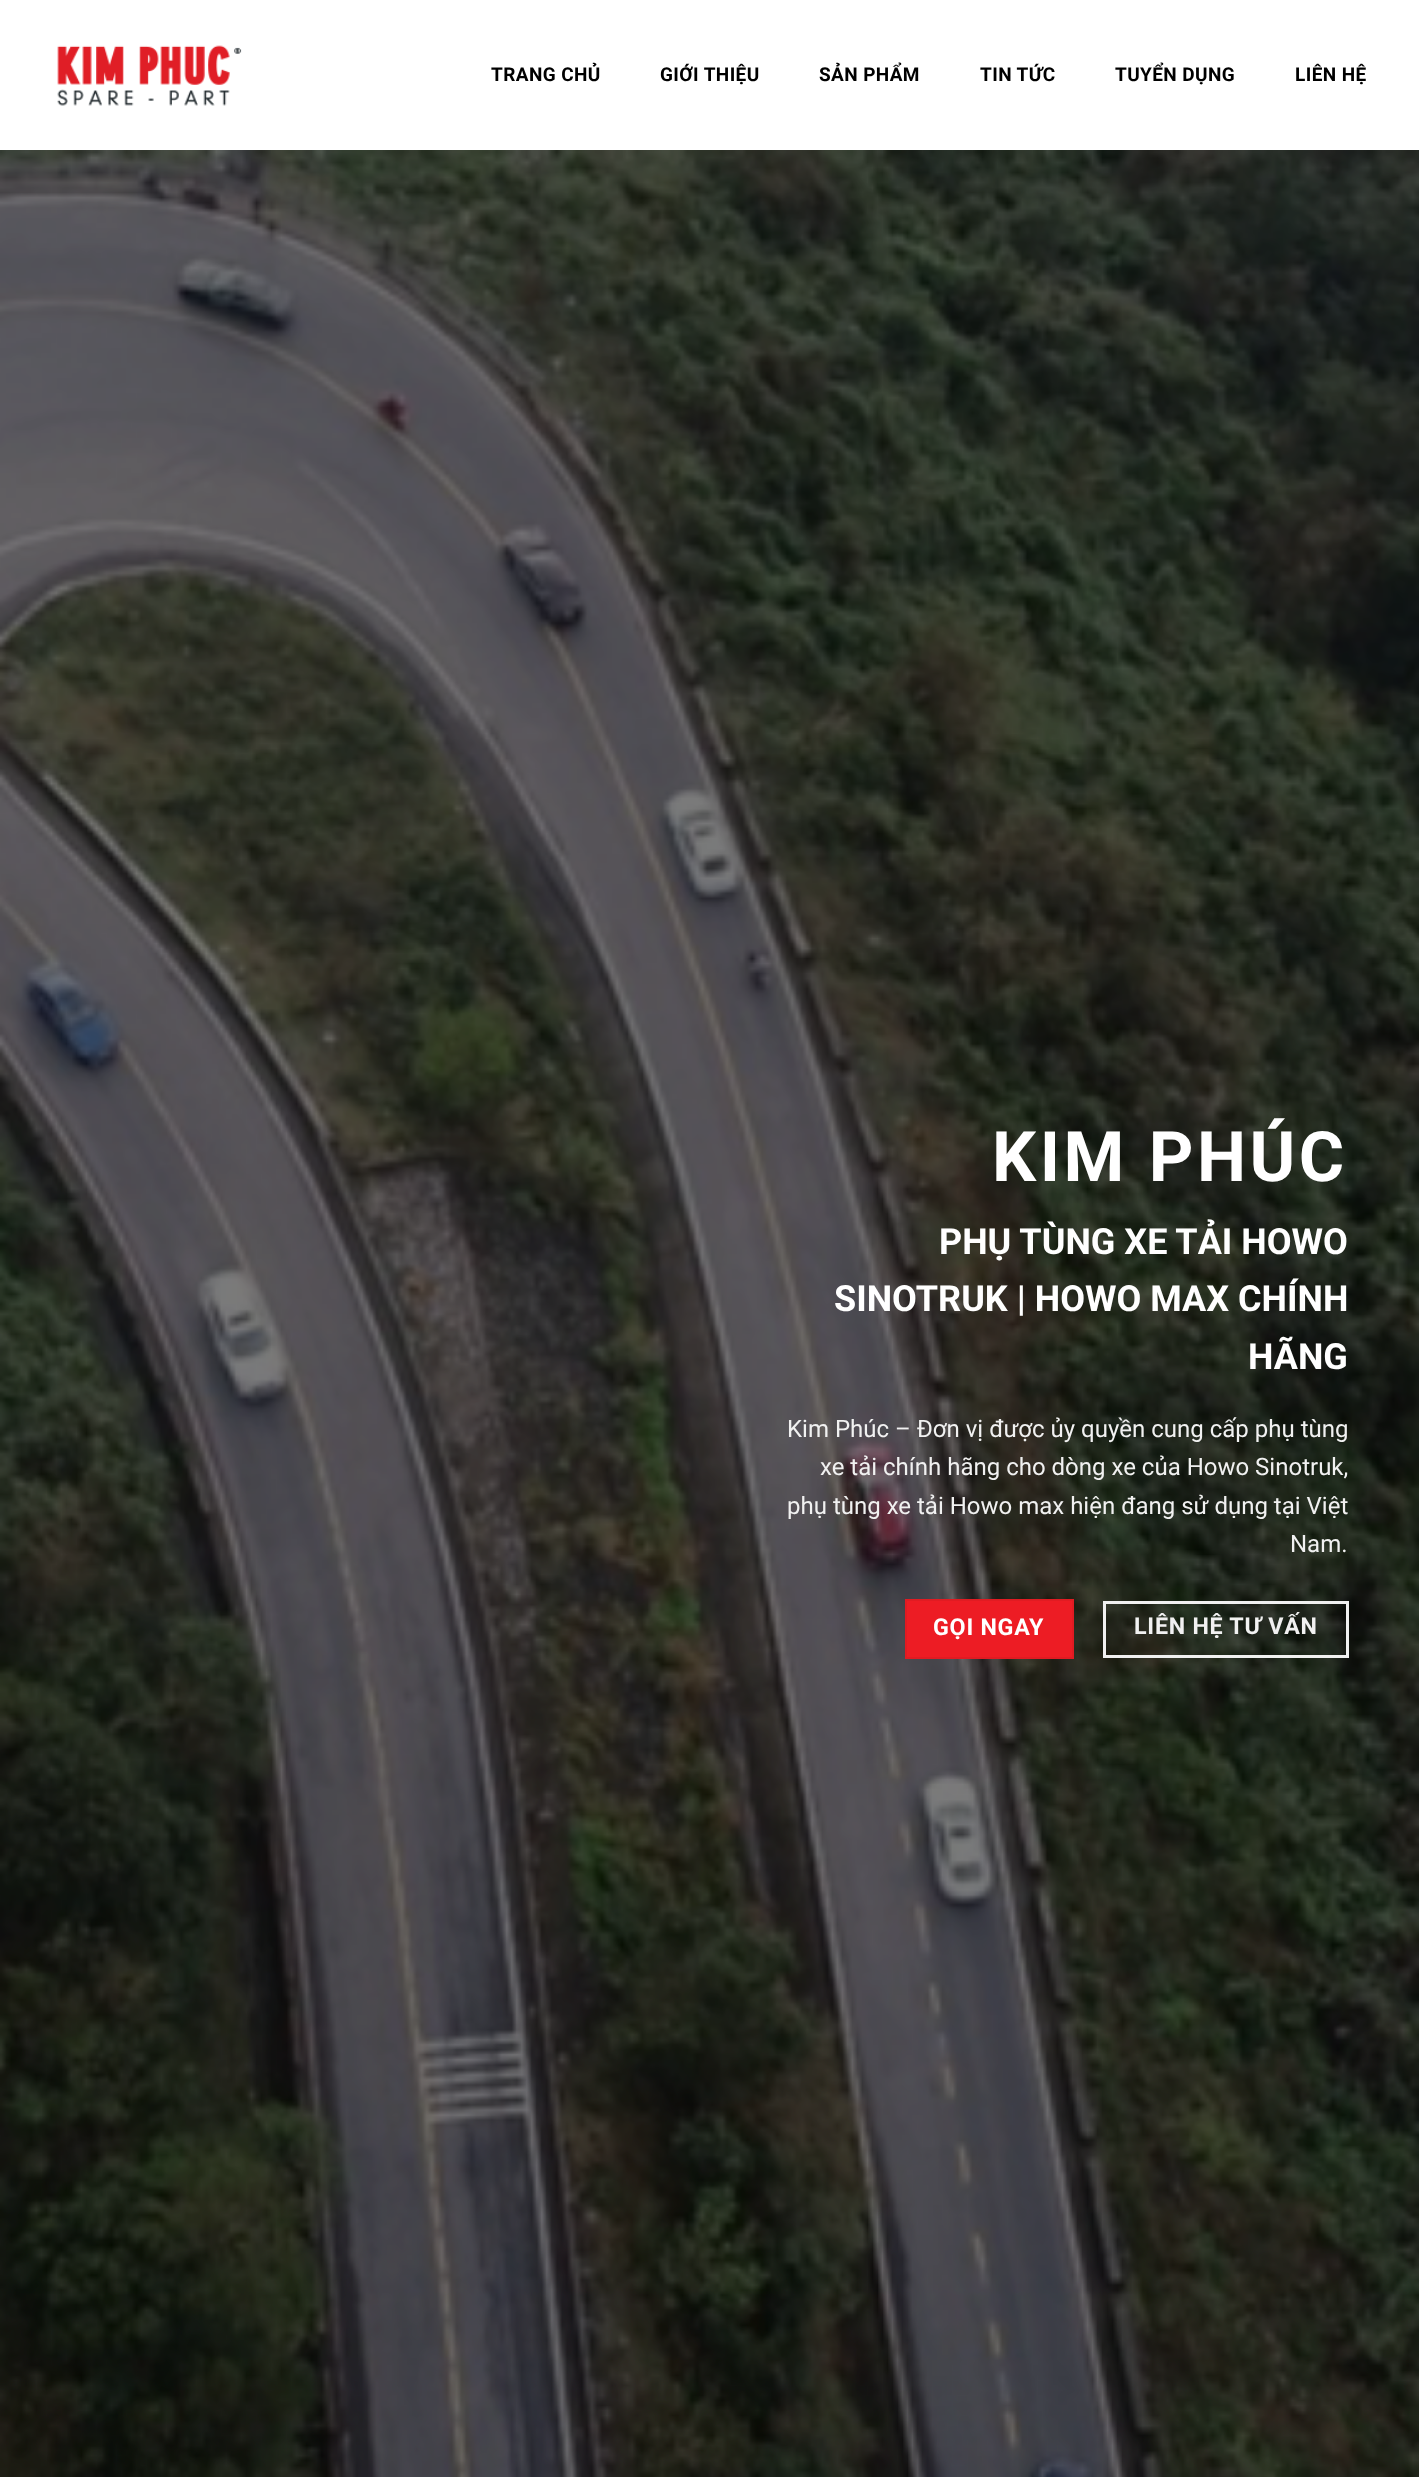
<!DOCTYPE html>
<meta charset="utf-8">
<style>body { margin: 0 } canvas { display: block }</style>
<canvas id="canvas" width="1419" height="2477"></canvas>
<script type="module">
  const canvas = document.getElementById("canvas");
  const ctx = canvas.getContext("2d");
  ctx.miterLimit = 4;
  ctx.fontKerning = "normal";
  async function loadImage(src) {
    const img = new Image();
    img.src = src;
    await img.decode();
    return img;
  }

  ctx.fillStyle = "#ffffff";
  ctx.fillRect(0, 0, 1419, 2477);
  ctx.drawImage(await loadImage("img1.png"), 57, 45, 185, 61);
  ctx.letterSpacing = "0.4px";
  ctx.font = "bold 19px Roboto";
  ctx.fillStyle = "#000000";
  ctx.fillText("TRANG CHỦ", 491, 81);
  ctx.fillText("GIỚI THIỆU", 660, 81);
  ctx.fillText("SẢN PHẨM", 819, 81);
  ctx.fillText("TIN TỨC", 980, 81);
  ctx.fillText("TUYỂN DỤNG", 1115, 81);
  ctx.fillText("LIÊN HỆ", 1295, 81);
  ctx.drawImage(await loadImage("img2.png"), 0, 150, 1419, 2327);
  ctx.letterSpacing = "3.5px";
  ctx.font = "bold 69.5px Roboto";
  ctx.fillStyle = "#ffffff";
  ctx.fillText("KIM PHÚC", 992, 1181);
  ctx.letterSpacing = "0px";
  ctx.font = "bold 36px Roboto";
  ctx.fillText("PHỤ TÙNG XE TẢI HOWO", 939, 1254);
  ctx.fillText("SINOTRUK | HOWO MAX CHÍNH", 834, 1311);
  ctx.fillText("HÃNG", 1248, 1369);
  ctx.font = "24px Roboto";
  ctx.fillStyle = "#f1f1f1";
  ctx.fillText("Kim Phúc – Đơn vị được ủy quyền cung cấp phụ tùng", 787, 1437);
  ctx.fillText("xe tải chính hãng cho dòng xe của Howo Sinotruk,", 820, 1475);
  ctx.fillText("phụ tùng xe tải Howo max hiện đang sử dụng tại Việt", 787, 1514);
  ctx.fillText("Nam.", 1290, 1552);
  ctx.fillStyle = "#ed1c24";
  ctx.beginPath();
  ctx.rect(906, 1600, 167, 58);
  ctx.fill();
  ctx.strokeStyle = "#e11b22";
  ctx.lineWidth = 2;
  ctx.stroke();
  ctx.letterSpacing = "0.75px";
  ctx.font = "bold 23.25px Roboto";
  ctx.fillStyle = "#ffffff";
  ctx.fillText("GỌI NGAY", 933, 1635);
  ctx.strokeStyle = "#f1f1f1";
  ctx.lineWidth = 3;
  ctx.strokeRect(1104.5, 1602.5, 243, 54);
  ctx.fillStyle = "#f1f1f1";
  ctx.fillText("LIÊN HỆ TƯ VẤN", 1134, 1634);
</script>
